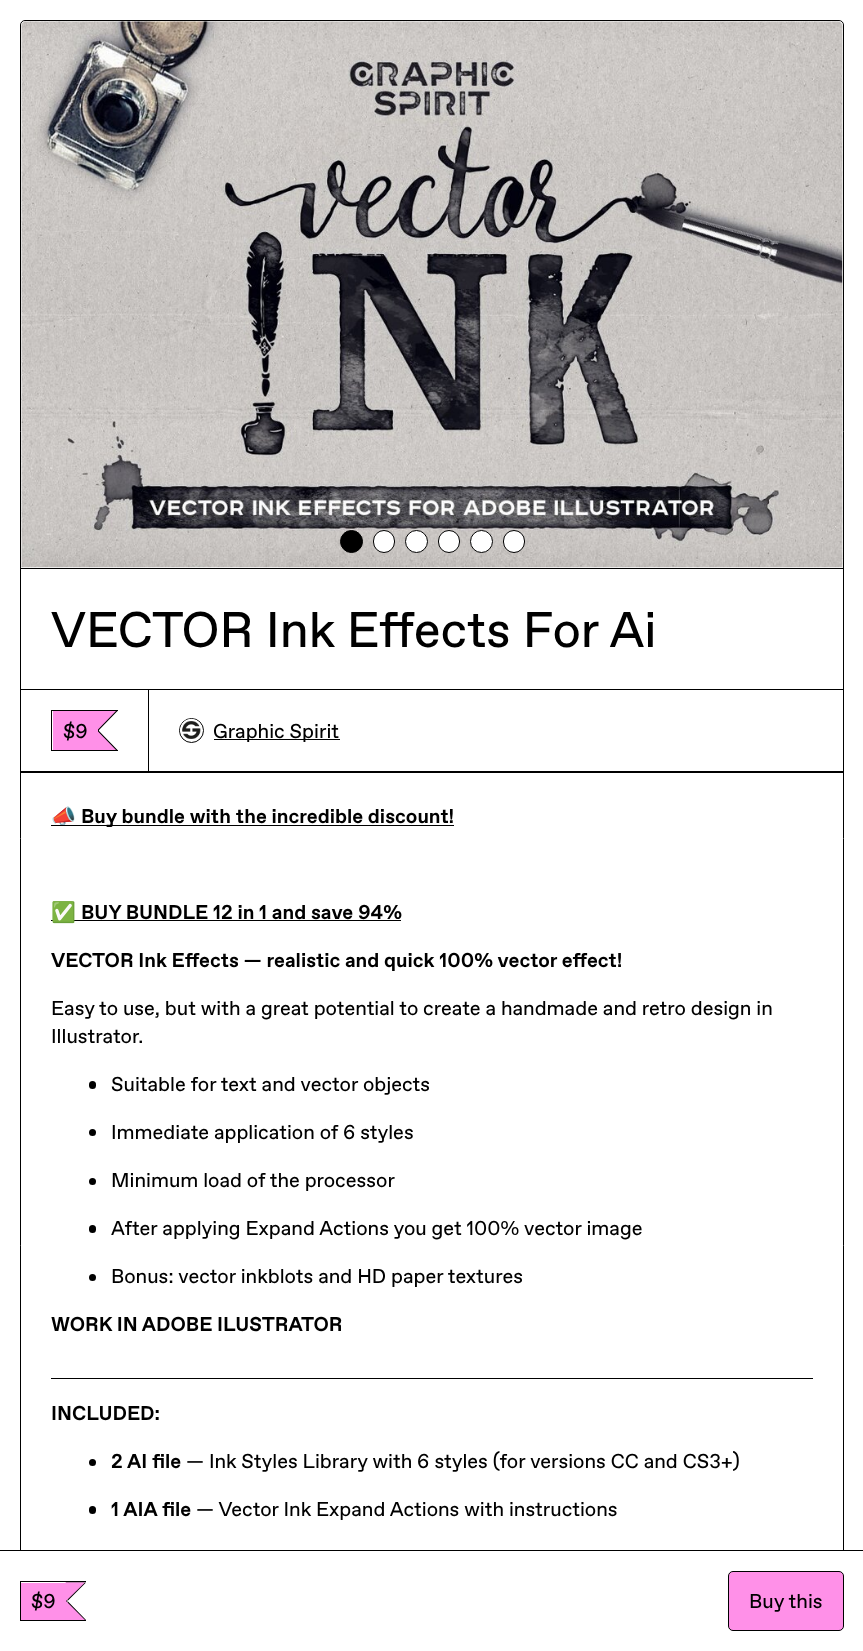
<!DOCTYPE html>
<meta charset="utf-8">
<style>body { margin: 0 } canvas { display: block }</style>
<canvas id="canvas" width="863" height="1651"></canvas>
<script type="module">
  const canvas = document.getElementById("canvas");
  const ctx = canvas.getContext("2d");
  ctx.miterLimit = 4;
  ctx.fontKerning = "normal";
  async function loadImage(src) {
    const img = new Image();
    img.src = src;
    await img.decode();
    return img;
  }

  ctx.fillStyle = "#ffffff";
  ctx.fillRect(0, 0, 863, 1651);
  ctx.beginPath();
  ctx.roundRect(20.5, 20.5, 823, 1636, 4.5);
  ctx.strokeStyle = "#000000";
  ctx.stroke();
  ctx.fillStyle = "#000000";
  ctx.fillRect(21, 568, 822, 1);
  ctx.drawImage(await loadImage("img1.png"), 21, 21, 822, 547);
  ctx.drawImage(await loadImage("img2.png"), 842, 25, 1, 543);
  ctx.beginPath();
  ctx.arc(351.5, 541.5, 11, 0, Math.PI * 2);
  ctx.fill();
  ctx.stroke();
  ctx.fillStyle = "#ffffff";
  ctx.beginPath();
  ctx.roundRect(373.5, 530.5, 21, 22, 10.5);
  ctx.fill();
  ctx.stroke();
  ctx.beginPath();
  ctx.arc(416.5, 541.5, 11, 0, Math.PI * 2);
  ctx.fill();
  ctx.stroke();
  ctx.beginPath();
  ctx.roundRect(438.5, 530.5, 21, 22, 10.5);
  ctx.fill();
  ctx.stroke();
  ctx.beginPath();
  ctx.arc(481.5, 541.5, 11, 0, Math.PI * 2);
  ctx.fill();
  ctx.stroke();
  ctx.beginPath();
  ctx.roundRect(503.5, 530.5, 21, 22, 10.5);
  ctx.fill();
  ctx.stroke();
  ctx.font = "50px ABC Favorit";
  ctx.fillStyle = "#000000";
  ctx.fillText("VECTOR Ink Effects For Ai", 51, 647);
  ctx.fillRect(21, 771, 822, 1);
  ctx.strokeRect(20.5, 689.5, 128, 83);
  ctx.fillRect(51, 710, 67, 1);
  ctx.fillRect(51, 750, 67, 1);
  ctx.fillRect(51, 710, 1, 41);
  ctx.fillStyle = "#ff90e8";
  ctx.fillRect(53, 711, 45, 39);
  ctx.fillStyle = "#000000";
  ctx.beginPath();
  ctx.moveTo(97.5, 711);
  ctx.lineTo(117.5, 711);
  ctx.lineTo(99, 730);
  ctx.closePath();
  ctx.moveTo(117.5, 750);
  ctx.lineTo(97.5, 750);
  ctx.lineTo(99, 731);
  ctx.closePath();
  ctx.fill();
  ctx.fillRect(98, 728, 1, 5);
  ctx.fillStyle = "#ff90e8";
  ctx.beginPath();
  ctx.moveTo(96, 711);
  ctx.lineTo(116, 711);
  ctx.lineTo(97.5, 730);
  ctx.closePath();
  ctx.moveTo(116, 750);
  ctx.lineTo(96, 750);
  ctx.lineTo(97.5, 731);
  ctx.closePath();
  ctx.fill();
  ctx.font = "20px ABC Favorit";
  ctx.fillStyle = "#000000";
  ctx.fillText("$9", 63, 738);
  ctx.strokeRect(148.5, 689.5, 695, 83);
  ctx.beginPath();
  ctx.arc(191.5, 730.5, 12, 0, Math.PI * 2);
  ctx.stroke();
  ctx.drawImage(await loadImage("img3.png"), 180, 718, 23, 21);
  ctx.fillRect(214, 739, 126, 1);
  ctx.fillText("Graphic Spirit", 213, 738);
  ctx.fillRect(51, 825, 403, 1);
  ctx.font = "bold 20px Noto Color Emoji";
  ctx.fillText("📣", 51, 823);
  ctx.font = "bold 20px ABC Favorit";
  ctx.fillText("Buy bundle with the incredible discount!", 81, 823);
  ctx.fillRect(51, 920, 350, 1);
  ctx.font = "bold 20px Noto Color Emoji";
  ctx.fillText("✅", 51, 919);
  ctx.font = "bold 20px ABC Favorit";
  ctx.fillText("BUY BUNDLE 12 in 1 and save 94%", 81, 919);
  ctx.fillText("VECTOR Ink Effects — realistic and quick 100% vector effect!", 51, 967);
  ctx.font = "20px ABC Favorit";
  ctx.fillText("Easy to use, but with a great potential to create a handmade and retro design in", 51, 1015);
  ctx.fillText("Illustrator.", 51, 1043);
  ctx.beginPath();
  ctx.roundRect(89, 1081, 7, 8, 3.5);
  ctx.fill();
  ctx.fillText("Suitable for text and vector objects", 111, 1091);
  ctx.beginPath();
  ctx.arc(92.5, 1132.5, 3.5, 0, Math.PI * 2);
  ctx.fill();
  ctx.fillText("Immediate application of 6 styles", 111, 1139);
  ctx.beginPath();
  ctx.arc(92.5, 1181.5, 3.5, 0, Math.PI * 2);
  ctx.fill();
  ctx.fillText("Minimum load of the processor", 111, 1187);
  ctx.beginPath();
  ctx.roundRect(89, 1225, 7, 8, 3.5);
  ctx.fill();
  ctx.fillText("After applying Expand Actions you get 100% vector image", 111, 1235);
  ctx.beginPath();
  ctx.arc(92.5, 1277.5, 3.5, 0, Math.PI * 2);
  ctx.fill();
  ctx.fillText("Bonus: vector inkblots and HD paper textures", 111, 1283);
  ctx.font = "bold 20px ABC Favorit";
  ctx.fillText("WORK IN ADOBE ILUSTRATOR", 51, 1331);
  ctx.fillRect(51, 1378, 762, 1);
  ctx.fillText("INCLUDED:", 51, 1420);
  ctx.beginPath();
  ctx.arc(92.5, 1462.5, 3.5, 0, Math.PI * 2);
  ctx.fill();
  ctx.fillText("2 AI file", 111, 1468);
  ctx.font = "20px ABC Favorit";
  ctx.fillText("— Ink Styles Library with 6 styles (for versions CC and CS3+)", 186, 1468);
  ctx.beginPath();
  ctx.roundRect(89, 1506, 7, 8, 3.5);
  ctx.fill();
  ctx.font = "bold 20px ABC Favorit";
  ctx.fillText("1 AIA file", 111, 1516);
  ctx.font = "20px ABC Favorit";
  ctx.fillText("— Vector Ink Expand Actions with instructions", 196, 1516);
  ctx.beginPath();
  ctx.moveTo(0, 1550);
  ctx.lineTo(0, 1551);
  ctx.lineTo(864, 1551);
  ctx.lineTo(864, 1650);
  ctx.lineTo(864, 1550);
  ctx.closePath();
  ctx.fill();
  ctx.fillStyle = "#ffffff";
  ctx.fillRect(20, 1551, 824, 100);
  ctx.fillStyle = "#000000";
  ctx.fillRect(20, 1581, 66, 1);
  ctx.fillRect(20, 1620, 66, 1);
  ctx.fillRect(20, 1581, 1, 40);
  ctx.fillStyle = "#ff90e8";
  ctx.fillRect(21, 1583, 45, 37);
  ctx.fillStyle = "#000000";
  ctx.beginPath();
  ctx.moveTo(66, 1582.5);
  ctx.lineTo(86, 1582.5);
  ctx.lineTo(67.5, 1601);
  ctx.closePath();
  ctx.moveTo(86, 1620);
  ctx.lineTo(66, 1620);
  ctx.lineTo(67.5, 1601);
  ctx.closePath();
  ctx.fill();
  ctx.fillRect(66, 1600, 1, 2);
  ctx.fillStyle = "#ff90e8";
  ctx.beginPath();
  ctx.moveTo(65, 1582.5);
  ctx.lineTo(85, 1582.5);
  ctx.lineTo(66, 1601);
  ctx.closePath();
  ctx.moveTo(85, 1620);
  ctx.lineTo(65, 1620);
  ctx.lineTo(66, 1601);
  ctx.closePath();
  ctx.fill();
  ctx.fillStyle = "#000000";
  ctx.fillText("$9", 31, 1608);
  ctx.fillStyle = "#ff90e8";
  ctx.beginPath();
  ctx.roundRect(728.5, 1571.5, 115, 59, 4.5);
  ctx.fill();
  ctx.stroke();
  ctx.fillStyle = "#000000";
  ctx.fillText("Buy this", 749, 1608);
</script>
